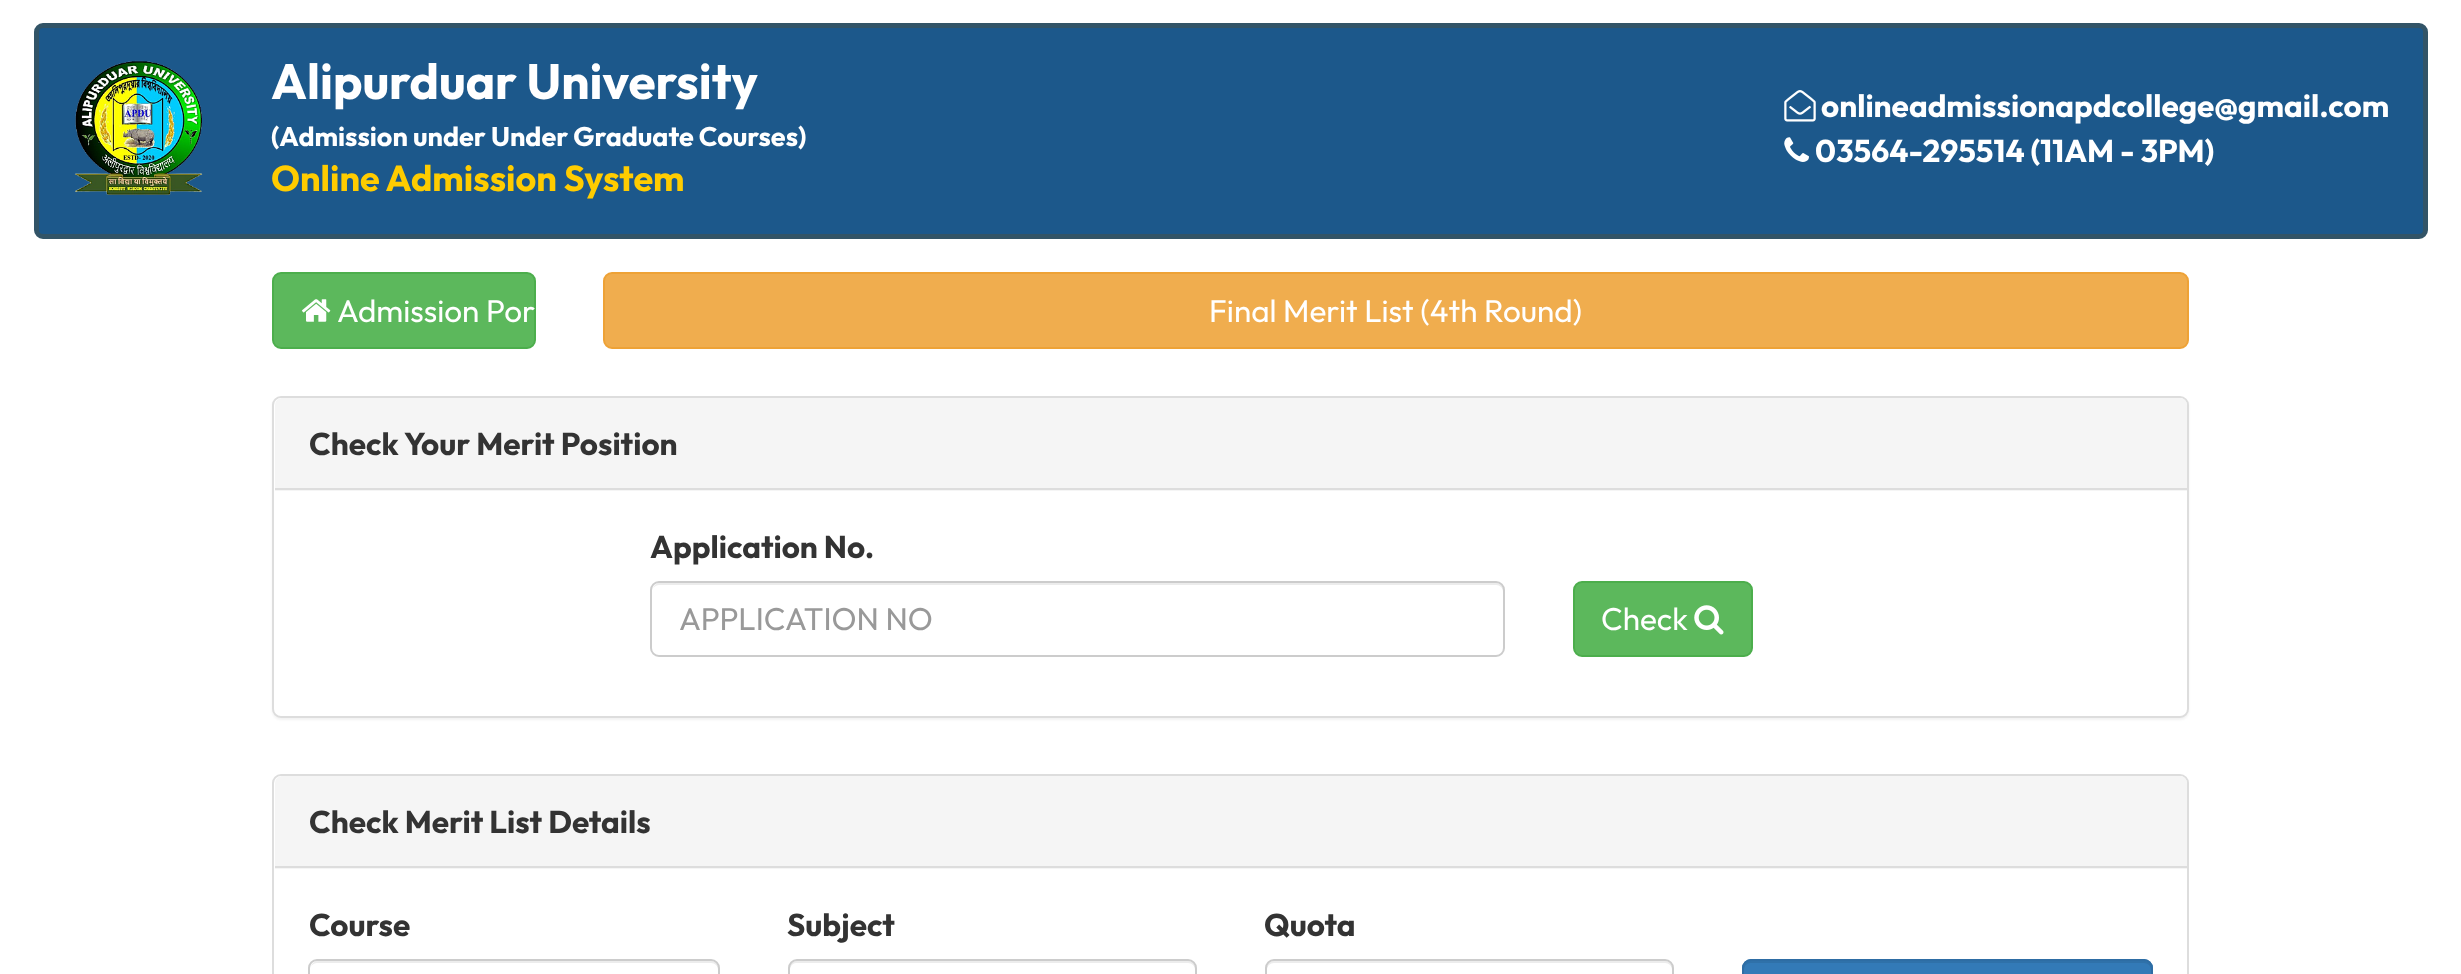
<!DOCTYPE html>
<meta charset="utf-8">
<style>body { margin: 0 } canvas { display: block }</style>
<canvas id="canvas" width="2461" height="974"></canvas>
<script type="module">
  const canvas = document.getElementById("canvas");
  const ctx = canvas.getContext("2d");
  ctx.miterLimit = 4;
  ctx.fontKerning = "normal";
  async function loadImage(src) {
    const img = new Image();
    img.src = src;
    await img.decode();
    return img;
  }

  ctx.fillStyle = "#ffffff";
  ctx.fillRect(0, 0, 2461, 974);
  ctx.fillStyle = "#1c588b";
  ctx.beginPath();
  ctx.roundRect(36.5, 25.5, 2389, 211, 6.5);
  ctx.fill();
  ctx.strokeStyle = "#325467";
  ctx.lineWidth = 5;
  ctx.stroke();
  ctx.drawImage(await loadImage("img1.png"), 74, 60, 129, 135);
  ctx.font = "bold 49.5px Outfit";
  ctx.fillStyle = "#ffffff";
  ctx.fillText("Alipurduar University", 271, 99);
  ctx.font = "bold 27px Outfit";
  ctx.fillText("(Admission under Under Graduate Courses)", 271, 146);
  ctx.font = "bold 36px Outfit";
  ctx.fillStyle = "#ffcc00";
  ctx.fillText("Online Admission System", 271, 191);
  ctx.drawImage(await loadImage("img2.png"), 1784, 90, 32, 32);
  ctx.font = "bold 31.5px Outfit";
  ctx.fillStyle = "#ffffff";
  ctx.fillText("onlineadmissionapdcollege@gmail.com", 1821, 117);
  ctx.drawImage(await loadImage("img3.png"), 1784, 137, 25, 25);
  ctx.fillText("03564-295514 (11AM - 3PM)", 1815, 162);
  ctx.fillStyle = "#5cb85c";
  ctx.beginPath();
  ctx.roundRect(273, 273, 262, 75, 8);
  ctx.fill();
  ctx.strokeStyle = "#4cae4c";
  ctx.lineWidth = 2;
  ctx.stroke();
  ctx.drawImage(await loadImage("img4.png"), 302, 299, 29, 23);
  ctx.font = "31.5px Outfit";
  ctx.fillStyle = "#ffffff";
  ctx.fillText("Admission Por", 337, 322);
  ctx.fillStyle = "#f0ad4e";
  ctx.beginPath();
  ctx.roundRect(604, 273, 1584, 75, 8);
  ctx.fill();
  ctx.strokeStyle = "#eea236";
  ctx.stroke();
  ctx.fillStyle = "#ffffff";
  ctx.fillText("Final Merit List (4th Round)", 1209, 322);
  ctx.fillStyle = "rgba(0, 0, 0, 0.05)";
  ctx.filter = "blur(1px)";
  ctx.beginPath();
  ctx.roundRect(272, 398, 1917, 322, 9);
  ctx.fill();
  ctx.filter = "none";
  ctx.fillStyle = "#ffffff";
  ctx.beginPath();
  ctx.roundRect(273, 397, 1915, 320, 8);
  ctx.fill();
  ctx.strokeStyle = "#dddddd";
  ctx.stroke();
  ctx.fillStyle = "#f5f5f5";
  ctx.beginPath();
  ctx.roundRect(275, 398, 1912, 93, [7, 7, 0, 0]);
  ctx.fill();
  ctx.fillStyle = "#dddddd";
  ctx.fillRect(275, 488, 1912, 2);
  ctx.font = "bold 31.5px Outfit";
  ctx.fillStyle = "#333333";
  ctx.fillText("Check Your Merit Position", 309, 455);
  ctx.fillText("Application No.", 650, 558);
  ctx.fillStyle = "#ececec";
  ctx.beginPath();
  ctx.moveTo(659, 585);
  ctx.lineTo(1496, 585);
  ctx.bezierCurveTo(1500, 585, 1503, 588, 1503, 592);
  ctx.lineTo(1503, 590);
  ctx.bezierCurveTo(1503, 586, 1500, 583, 1496, 583);
  ctx.lineTo(660, 583);
  ctx.bezierCurveTo(657, 583, 654, 585, 653, 588);
  ctx.bezierCurveTo(655, 586, 657, 585, 659, 585);
  ctx.closePath();
  ctx.fill();
  ctx.beginPath();
  ctx.roundRect(651, 582, 853, 74, 8);
  ctx.strokeStyle = "#cccccc";
  ctx.stroke();
  ctx.font = "31.5px Outfit";
  ctx.fillStyle = "#999999";
  ctx.fillText("APPLICATION NO", 679, 630);
  ctx.fillStyle = "#5cb85c";
  ctx.beginPath();
  ctx.roundRect(1574, 582, 178, 74, 8);
  ctx.fill();
  ctx.strokeStyle = "#4cae4c";
  ctx.stroke();
  ctx.fillStyle = "#ffffff";
  ctx.fillText("Check", 1601, 630);
  ctx.drawImage(await loadImage("img5.png"), 1694, 605, 30, 30);
  ctx.beginPath();
  ctx.roundRect(273, 775, 1915, 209, 8);
  ctx.strokeStyle = "#dddddd";
  ctx.stroke();
  ctx.fillStyle = "#f5f5f5";
  ctx.beginPath();
  ctx.roundRect(275, 776, 1912, 93, [7, 7, 0, 0]);
  ctx.fill();
  ctx.fillStyle = "#dddddd";
  ctx.fillRect(275, 866, 1912, 2);
  ctx.font = "bold 31.5px Outfit";
  ctx.fillStyle = "#333333";
  ctx.fillText("Check Merit List Details", 309, 833);
  ctx.fillText("Course", 309, 936);
  ctx.fillStyle = "#ececec";
  ctx.beginPath();
  ctx.moveTo(317, 963);
  ctx.lineTo(711, 963);
  ctx.bezierCurveTo(715, 963, 718, 966, 718, 970);
  ctx.lineTo(718, 968);
  ctx.bezierCurveTo(718, 964, 715, 961, 711, 961);
  ctx.lineTo(318, 961);
  ctx.bezierCurveTo(315, 961, 312, 963, 311, 966);
  ctx.bezierCurveTo(313, 964, 315, 963, 317, 963);
  ctx.closePath();
  ctx.fill();
  ctx.beginPath();
  ctx.roundRect(309, 960, 410, 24, 8);
  ctx.strokeStyle = "#cccccc";
  ctx.stroke();
  ctx.fillStyle = "#333333";
  ctx.fillText("Subject", 787, 936);
  ctx.fillStyle = "#ececec";
  ctx.beginPath();
  ctx.moveTo(796, 963);
  ctx.lineTo(1188, 963);
  ctx.bezierCurveTo(1192, 963, 1195, 966, 1195, 970);
  ctx.lineTo(1195, 968);
  ctx.bezierCurveTo(1195, 964, 1192, 961, 1188, 961);
  ctx.lineTo(797, 961);
  ctx.bezierCurveTo(793, 961, 790, 964, 790, 968);
  ctx.lineTo(790, 970);
  ctx.bezierCurveTo(790, 966, 793, 963, 796, 963);
  ctx.closePath();
  ctx.fill();
  ctx.beginPath();
  ctx.roundRect(789, 960, 407, 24, 8);
  ctx.stroke();
  ctx.fillStyle = "#333333";
  ctx.fillText("Quota", 1264, 936);
  ctx.fillStyle = "#ececec";
  ctx.beginPath();
  ctx.moveTo(1274, 963);
  ctx.lineTo(1665, 963);
  ctx.bezierCurveTo(1669, 963, 1672, 966, 1672, 970);
  ctx.lineTo(1672, 968);
  ctx.bezierCurveTo(1672, 964, 1669, 961, 1665, 961);
  ctx.lineTo(1274, 961);
  ctx.bezierCurveTo(1270, 961, 1267, 964, 1267, 968);
  ctx.lineTo(1267, 970);
  ctx.bezierCurveTo(1267, 966, 1270, 963, 1274, 963);
  ctx.closePath();
  ctx.fill();
  ctx.beginPath();
  ctx.roundRect(1266, 960, 407, 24, 8);
  ctx.stroke();
  ctx.fillStyle = "#337ab7";
  ctx.beginPath();
  ctx.roundRect(1742, 959, 411, 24, 9);
  ctx.fill();
  ctx.fillStyle = "#2f71a9";
  ctx.beginPath();
  ctx.moveTo(1750, 963);
  ctx.lineTo(2144, 963);
  ctx.bezierCurveTo(2148, 963, 2151, 966, 2151, 970);
  ctx.lineTo(2151, 968);
  ctx.bezierCurveTo(2151, 964, 2148, 961, 2144, 961);
  ctx.lineTo(1751, 961);
  ctx.bezierCurveTo(1747, 961, 1744, 964, 1744, 968);
  ctx.lineTo(1744, 970);
  ctx.bezierCurveTo(1744, 966, 1747, 963, 1750, 963);
  ctx.closePath();
  ctx.fill();
  ctx.beginPath();
  ctx.roundRect(1743, 960, 409, 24, 8);
  ctx.strokeStyle = "#2e6da4";
  ctx.stroke();
</script>
